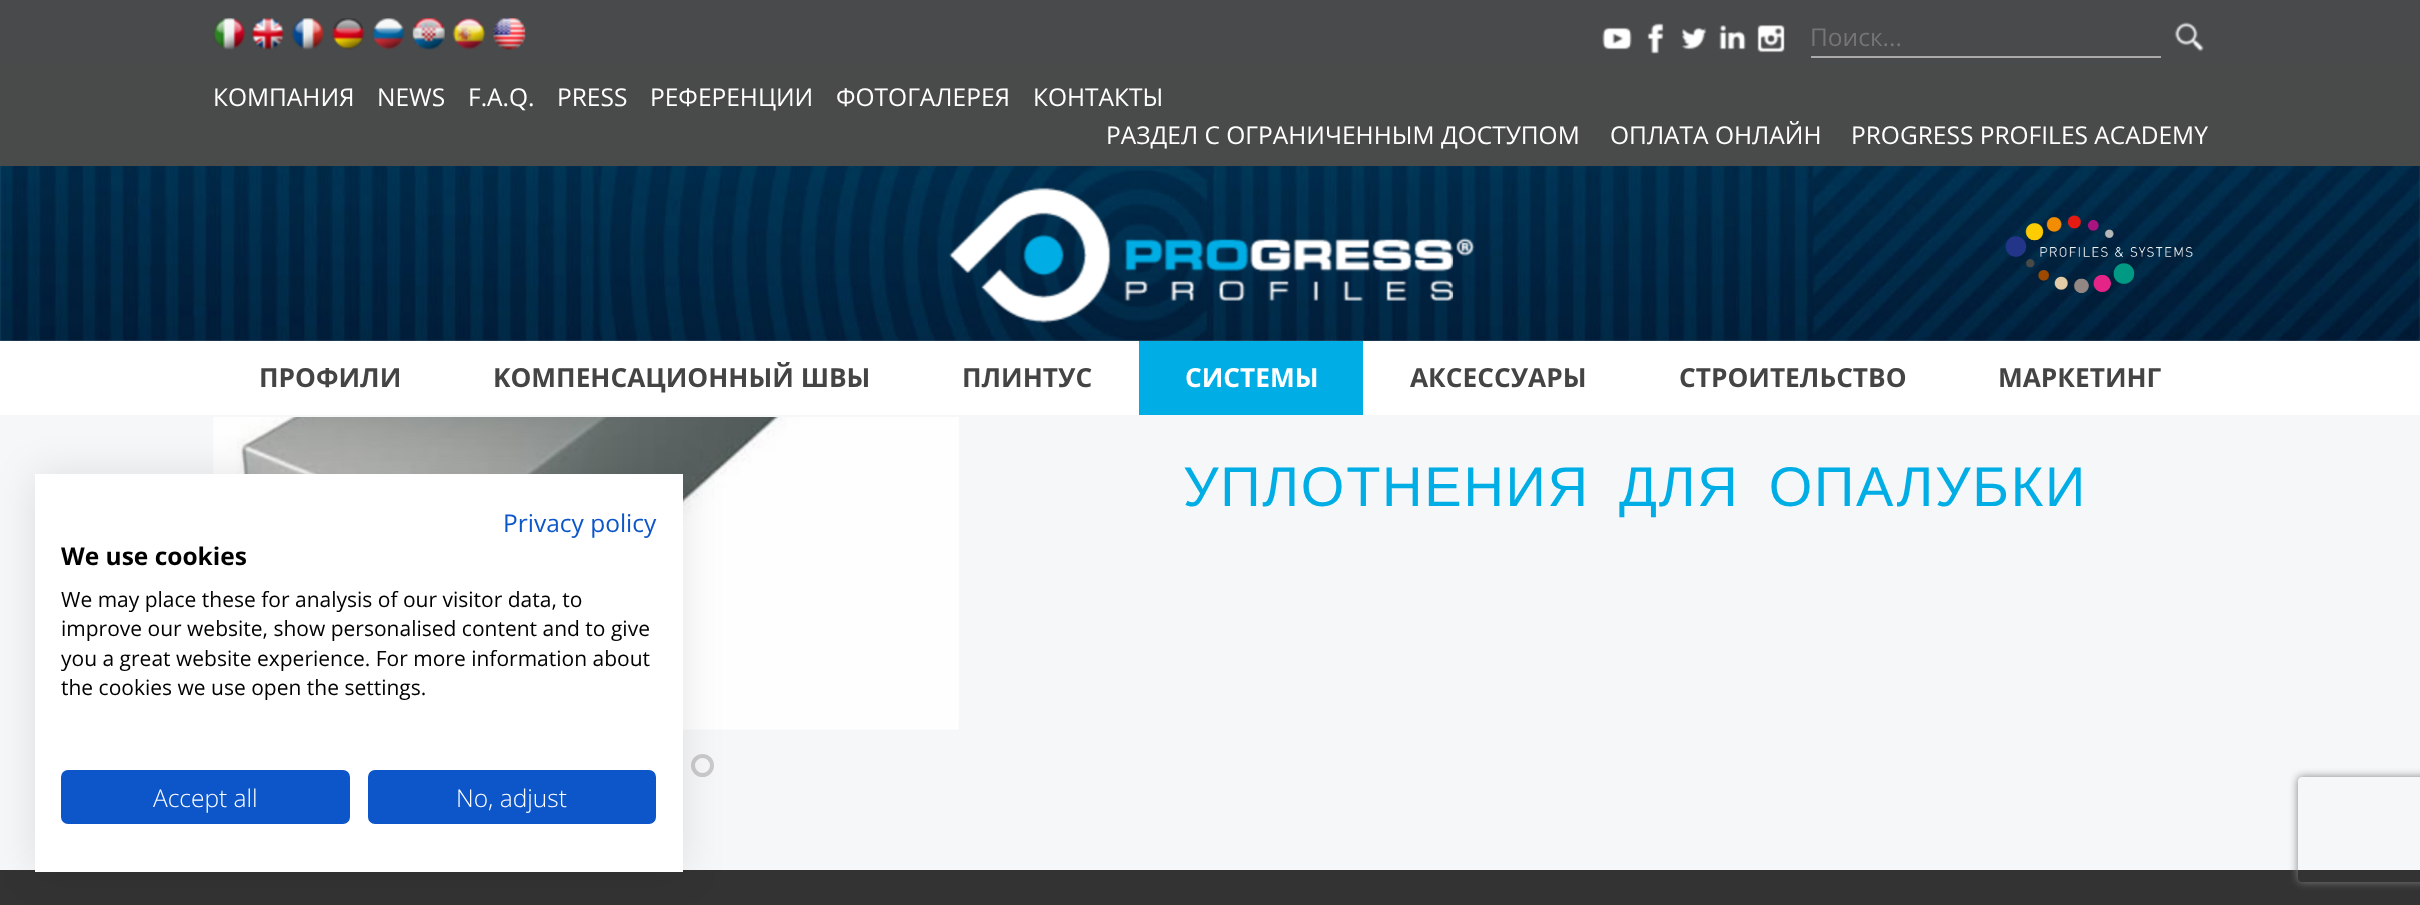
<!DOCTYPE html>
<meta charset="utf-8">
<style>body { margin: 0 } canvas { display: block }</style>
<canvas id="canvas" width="2420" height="905"></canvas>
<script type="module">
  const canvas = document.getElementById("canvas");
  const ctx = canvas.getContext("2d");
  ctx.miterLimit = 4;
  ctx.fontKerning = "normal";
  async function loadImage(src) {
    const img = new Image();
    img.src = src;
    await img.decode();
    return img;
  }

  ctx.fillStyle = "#f5f7f9";
  ctx.fillRect(0, 0, 2420, 905);
  ctx.fillStyle = "#494a4b";
  ctx.fillRect(0, 0, 2420, 65);
  ctx.drawImage(await loadImage("img1.png"), 213, 18, 33, 32);
  ctx.drawImage(await loadImage("img2.png"), 251, 18, 33, 32);
  ctx.drawImage(await loadImage("img3.png"), 291, 18, 33, 32);
  ctx.drawImage(await loadImage("img4.png"), 331, 18, 34, 32);
  ctx.drawImage(await loadImage("img5.png"), 372, 18, 33, 32);
  ctx.drawImage(await loadImage("img6.png"), 412, 18, 33, 32);
  ctx.drawImage(await loadImage("img7.png"), 452, 18, 33, 32);
  ctx.drawImage(await loadImage("img8.png"), 492, 18, 34, 32);
  ctx.drawImage(await loadImage("img9.png"), 1602, 27, 30, 23);
  ctx.drawImage(await loadImage("img10.png"), 1647, 23, 17, 31);
  ctx.drawImage(await loadImage("img11.png"), 1681, 27, 26, 23);
  ctx.drawImage(await loadImage("img12.png"), 1719, 25, 27, 25);
  ctx.drawImage(await loadImage("img13.png"), 1757, 24, 28, 29);
  ctx.fillStyle = "#aaaaaa";
  ctx.fillRect(1811, 56, 350, 2);
  ctx.font = "24.5px Open Sans";
  ctx.fillStyle = "#757575";
  ctx.fillText("Поиск...", 1810, 46);
  ctx.drawImage(await loadImage("img14.png"), 2174, 22, 30, 30);
  ctx.fillStyle = "#494a4a";
  ctx.fillRect(0, 65, 2420, 101);
  ctx.fillStyle = "#ffffff";
  ctx.fillText("КОМПАНИЯ", 213, 106);
  ctx.fillText("NEWS", 377, 106);
  ctx.fillText("F.A.Q.", 468, 106);
  ctx.fillText("PRESS", 557, 106);
  ctx.fillText("РЕФЕРЕНЦИИ", 650, 106);
  ctx.fillText("ФОТОГАЛЕРЕЯ", 836, 106);
  ctx.fillText("КОНТАКТЫ", 1033, 106);
  ctx.fillText("РАЗДЕЛ С ОГРАНИЧЕННЫМ ДОСТУПОМ", 1106, 144);
  ctx.fillText("ОПЛАТА ОНЛАЙН", 1610, 144);
  ctx.fillText("PROGRESS PROFILES ACADEMY", 1851, 144);
  ctx.drawImage(await loadImage("img15.png"), 0, 166, 2420, 175);
  ctx.drawImage(await loadImage("img16.png"), 949, 187, 526, 136);
  ctx.drawImage(await loadImage("img17.png"), 2005, 215, 188, 79);
  ctx.fillRect(0, 341, 2420, 74);
  ctx.font = "bold 26.25px Open Sans";
  ctx.fillStyle = "#444444";
  ctx.fillText("ПРОФИЛИ", 259, 387);
  ctx.fillText("KОМПЕНСАЦИОННЫЙ ШВЫ", 493, 387);
  ctx.fillText("ПЛИНТУС", 962, 387);
  ctx.fillStyle = "#00aee5";
  ctx.fillRect(1139, 341, 224, 74);
  ctx.fillStyle = "#ffffff";
  ctx.fillText("СИСТЕМЫ", 1185, 387);
  ctx.fillStyle = "#444444";
  ctx.fillText("АКСЕССУАРЫ", 1410, 387);
  ctx.fillText("СТРОИТЕЛЬСТВО", 1679, 387);
  ctx.fillText("МАРКЕТИНГ", 1998, 387);
  ctx.drawImage(await loadImage("img18.png"), 213, 417, 746, 313);
  ctx.beginPath();
  ctx.arc(702.5, 765.5, 9.5, 0, Math.PI * 2);
  ctx.strokeStyle = "#cacaca";
  ctx.lineWidth = 4;
  ctx.stroke();
  ctx.letterSpacing = "1.75px";
  ctx.wordSpacing = "12px";
  ctx.font = "56px Liberation Sans";
  ctx.fillStyle = "#00aee5";
  ctx.fillText("УПЛОТНЕНИЯ ДЛЯ ОПАЛУБКИ", 1183, 506);
  ctx.fillStyle = "#333333";
  ctx.fillRect(0, 870, 2420, 35);
  ctx.fillStyle = "rgba(0, 0, 0, 0.1)";
  ctx.filter = "blur(21px)";
  ctx.beginPath();
  ctx.rect(35, 474, 648, 398);
  ctx.fill();
  ctx.filter = "none";
  ctx.fillStyle = "#ffffff";
  ctx.fillRect(35, 474, 648, 398);
  ctx.letterSpacing = "0px";
  ctx.wordSpacing = "0px";
  ctx.font = "24.5px Open Sans";
  ctx.fillStyle = "#0d56c9";
  ctx.fillText("Privacy policy", 503, 532);
  ctx.font = "bold 24.5px Open Sans";
  ctx.fillStyle = "#000000";
  ctx.fillText("We use cookies", 61, 565);
  ctx.font = "21px Open Sans";
  ctx.fillText("We may place these for analysis of our visitor data, to", 61, 607);
  ctx.fillText("improve our website, show personalised content and to give", 61, 636);
  ctx.fillText("you a great website experience. For more information about", 61, 666);
  ctx.fillText("the cookies we use open the settings.", 61, 695);
  ctx.fillStyle = "#0d56c9";
  ctx.beginPath();
  ctx.roundRect(62, 771, 287, 52, 6);
  ctx.fill();
  ctx.strokeStyle = "#0d56c9";
  ctx.lineWidth = 2;
  ctx.stroke();
  ctx.font = "300 24.5px Open Sans";
  ctx.fillStyle = "#ffffff";
  ctx.fillText("Accept all", 153, 807);
  ctx.fillStyle = "#0d56c9";
  ctx.beginPath();
  ctx.roundRect(369, 771, 286, 52, 6);
  ctx.fill();
  ctx.stroke();
  ctx.fillStyle = "#ffffff";
  ctx.fillText("No, adjust", 456, 807);
  ctx.save();
  ctx.beginPath();
  ctx.moveTo(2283, 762);
  ctx.lineTo(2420, 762);
  ctx.lineTo(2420, 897);
  ctx.lineTo(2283, 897);
  ctx.closePath();
  ctx.moveTo(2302, 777);
  ctx.lineTo(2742, 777);
  ctx.bezierCurveTo(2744, 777, 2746, 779, 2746, 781);
  ctx.lineTo(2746, 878);
  ctx.bezierCurveTo(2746, 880, 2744, 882, 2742, 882);
  ctx.lineTo(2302, 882);
  ctx.bezierCurveTo(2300, 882, 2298, 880, 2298, 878);
  ctx.lineTo(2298, 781);
  ctx.bezierCurveTo(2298, 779, 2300, 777, 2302, 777);
  ctx.closePath();
  ctx.clip("evenodd");
  ctx.fillStyle = "#808080";
  ctx.filter = "blur(4.5px)";
  ctx.beginPath();
  ctx.roundRect(2298, 777, 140, 105, 4);
  ctx.fill();
  ctx.filter = "none";
  ctx.restore();
</script>
